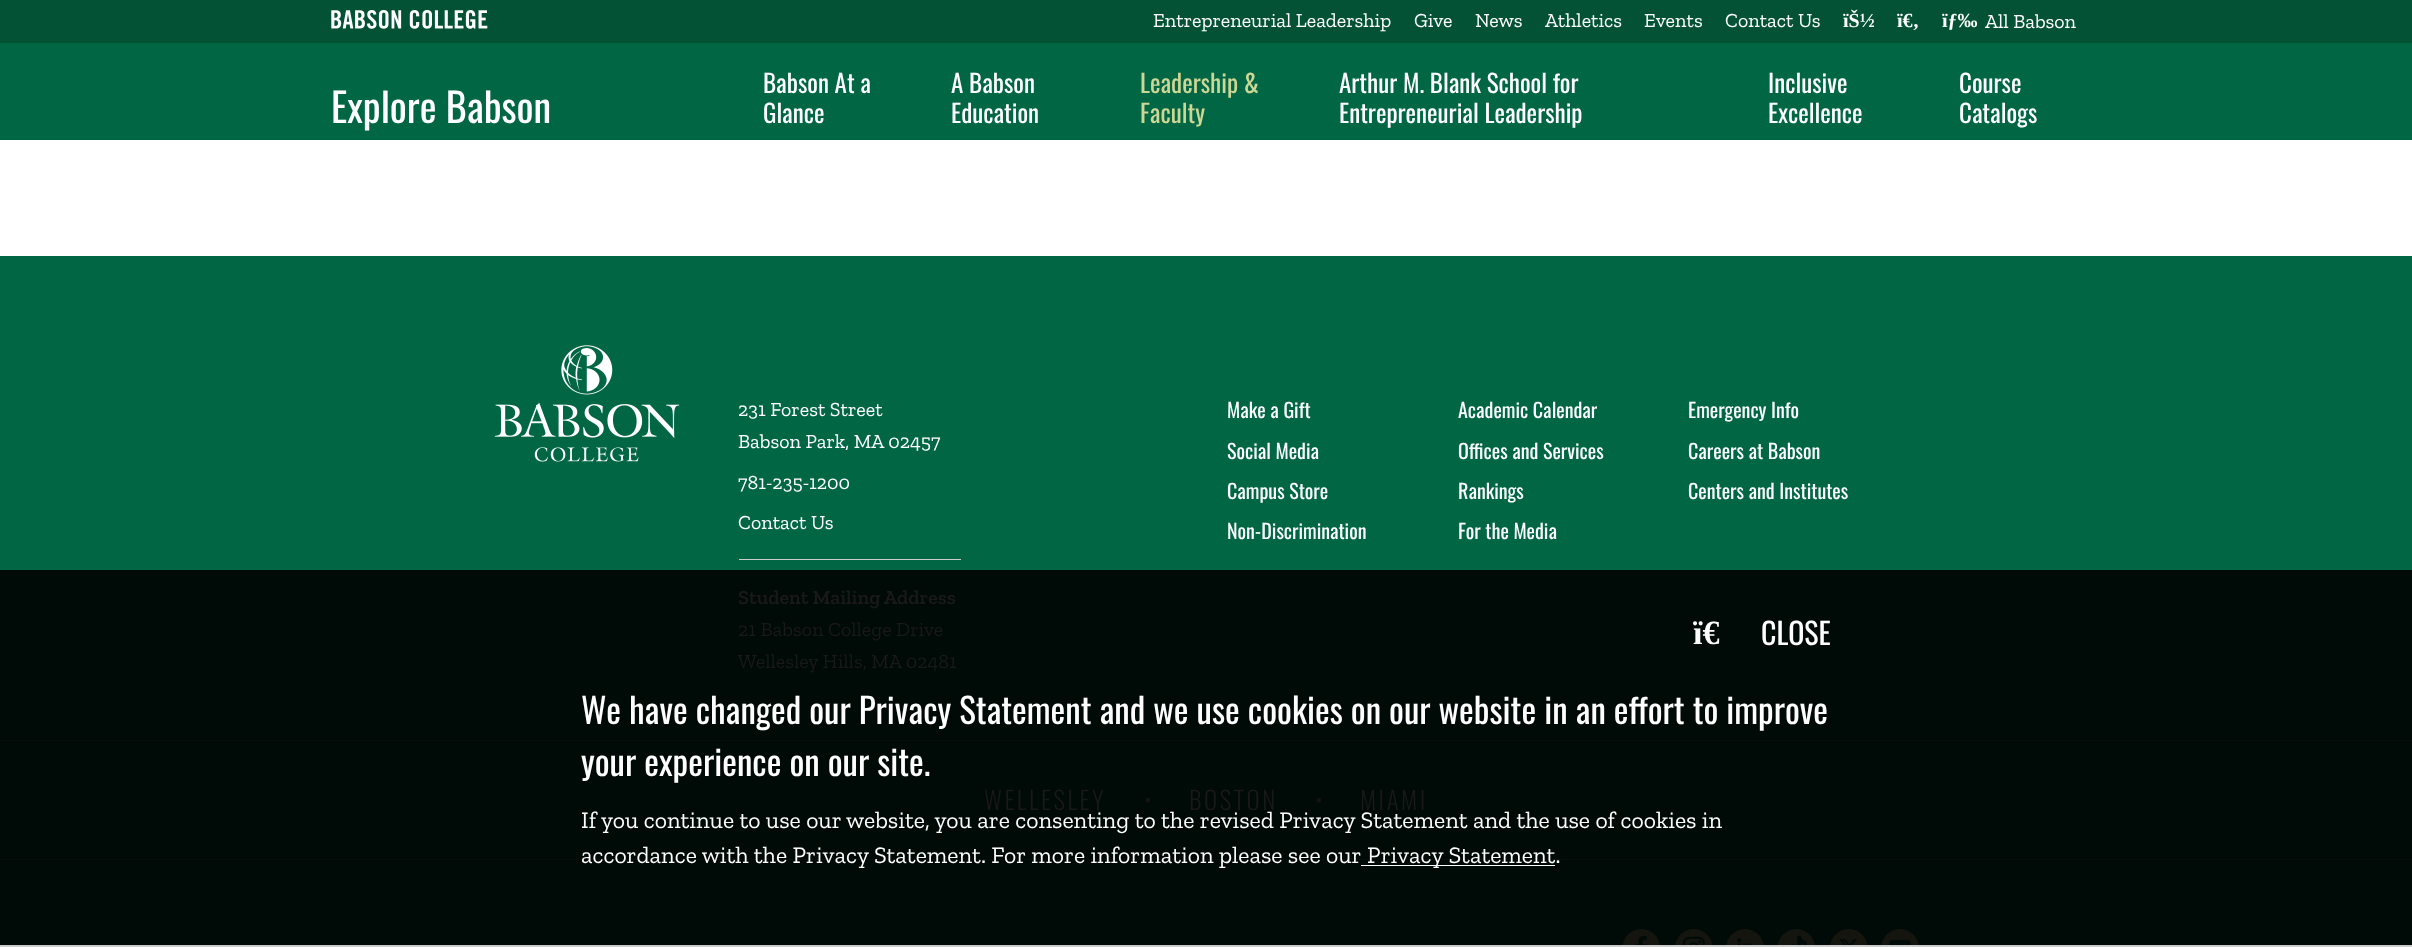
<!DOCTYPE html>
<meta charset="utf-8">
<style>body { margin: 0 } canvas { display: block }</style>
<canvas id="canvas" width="2412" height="947"></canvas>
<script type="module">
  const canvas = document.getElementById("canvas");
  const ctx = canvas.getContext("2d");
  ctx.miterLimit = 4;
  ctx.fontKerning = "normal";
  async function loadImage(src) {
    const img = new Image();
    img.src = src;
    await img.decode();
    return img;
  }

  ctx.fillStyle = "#ffffff";
  ctx.fillRect(0, 0, 2412, 947);
  ctx.fillStyle = "#006644";
  ctx.fillRect(0, 43, 2412, 97);
  ctx.fillStyle = "#045236";
  ctx.fillRect(0, 0, 2412, 43);
  ctx.font = "20px Zilla Slab";
  ctx.fillStyle = "#ffffff";
  ctx.fillText("Entrepreneurial Leadership", 1153, 27);
  ctx.fillText("Give", 1414, 27);
  ctx.fillText("News", 1475, 27);
  ctx.fillText("Athletics", 1545, 27);
  ctx.fillText("Events", 1644, 27);
  ctx.fillText("Contact Us", 1725, 27);
  ctx.font = "bold 20px Liberation Serif";
  ctx.fillText("ïŠ½", 1843, 27);
  ctx.fillText("ï€‚", 1897, 27);
  ctx.fillText("ïƒ‰", 1942, 27);
  ctx.font = "20px Zilla Slab";
  ctx.fillText("All Babson", 1985, 28);
  ctx.drawImage(await loadImage("img1.png"), 331, 10, 157, 19);
  ctx.font = "40px Oswald";
  ctx.fillText("Explore Babson", 331, 123);
  ctx.font = "25px Oswald";
  ctx.fillText("Babson At a", 763, 93);
  ctx.fillText("Glance", 763, 123);
  ctx.fillText("A Babson", 951, 93);
  ctx.fillText("Education", 951, 123);
  ctx.fillStyle = "#ccd695";
  ctx.fillText("Leadership &", 1140, 93);
  ctx.fillText("Faculty", 1140, 123);
  ctx.fillStyle = "#ffffff";
  ctx.fillText("Arthur M. Blank School for", 1339, 93);
  ctx.fillText("Entrepreneurial Leadership", 1339, 123);
  ctx.fillText("Inclusive", 1768, 93);
  ctx.fillText("Excellence", 1768, 123);
  ctx.fillText("Course", 1959, 93);
  ctx.fillText("Catalogs", 1959, 123);
  ctx.fillStyle = "#006644";
  ctx.fillRect(0, 256, 2412, 314);
  ctx.fillStyle = "#000a07";
  ctx.fillRect(0, 570, 2412, 375);
  ctx.drawImage(await loadImage("img2.png"), 494, 345, 186, 117);
  ctx.font = "20px Zilla Slab";
  ctx.fillStyle = "#ffffff";
  ctx.fillText("231 Forest Street", 738, 416);
  ctx.fillText("Babson Park, MA 02457", 738, 448);
  ctx.fillText("781-235-1200", 738, 489);
  ctx.fillText("Contact Us", 738, 529);
  ctx.fillStyle = "#cccccc";
  ctx.fillRect(739, 559, 222, 1);
  ctx.font = "600 20px Zilla Slab";
  ctx.fillStyle = "#191919";
  ctx.fillText("Student Mailing Address", 738, 604);
  ctx.font = "20px Zilla Slab";
  ctx.fillText("21 Babson College Drive", 738, 636);
  ctx.fillText("Wellesley Hills, MA 02481", 738, 668);
  ctx.font = "20px Oswald";
  ctx.fillStyle = "#ffffff";
  ctx.fillText("Make a Gift", 1227, 418);
  ctx.fillText("Academic Calendar", 1458, 418);
  ctx.fillText("Emergency Info", 1688, 418);
  ctx.fillText("Social Media", 1227, 459);
  ctx.fillText("Offices and Services", 1458, 459);
  ctx.fillText("Careers at Babson", 1688, 459);
  ctx.fillText("Campus Store", 1227, 499);
  ctx.fillText("Rankings", 1458, 499);
  ctx.fillText("Centers and Institutes", 1688, 499);
  ctx.fillText("Non-Discrimination", 1227, 539);
  ctx.fillText("For the Media", 1458, 539);
  ctx.fillStyle = "#cccccc";
  ctx.fillRect(0, 945, 2412, 2);
  ctx.font = "bold 34px Liberation Serif";
  ctx.fillStyle = "#ffffff";
  ctx.fillText("ï€", 1693, 644);
  ctx.font = "30px Oswald";
  ctx.fillText("CLOSE", 1761, 645);
  ctx.font = "35px Oswald";
  ctx.fillText("We have changed our Privacy Statement and we use cookies on our website in an effort to improve", 581, 724);
  ctx.fillText("your experience on our site.", 581, 776);
  ctx.font = "23.75px Zilla Slab";
  ctx.fillText("If you continue to use our website, you are consenting to the revised Privacy Statement and the use of cookies in", 581, 828);
  ctx.fillStyle = "#080e0c";
  ctx.fillRect(0, 859, 2412, 1);
  ctx.fillStyle = "#ffffff";
  ctx.fillText("accordance with the Privacy Statement. For more information please see our", 581, 863);
  ctx.fillRect(1361, 865, 194, 1);
  ctx.fillText("Privacy Statement.", 1367, 863);
  ctx.fillStyle = "#080e0c";
  ctx.fillRect(0, 740, 2412, 1);
  ctx.letterSpacing = "2.5px";
  ctx.font = "300 25px Oswald";
  ctx.fillStyle = "#191919";
  ctx.fillText("WELLESLEY", 984, 810);
  ctx.letterSpacing = "0px";
  ctx.fillStyle = "#14150f";
  ctx.fillText("•", 1144, 810);
  ctx.letterSpacing = "2.5px";
  ctx.fillStyle = "#191919";
  ctx.fillText("BOSTON", 1189, 810);
  ctx.letterSpacing = "0px";
  ctx.fillStyle = "#14150f";
  ctx.fillText("•", 1315, 810);
  ctx.letterSpacing = "2.5px";
  ctx.fillStyle = "#191919";
  ctx.fillText("MIAMI", 1360, 810);
  ctx.drawImage(await loadImage("img3.png"), 1622, 929, 38, 16);
  ctx.drawImage(await loadImage("img4.png"), 1675, 929, 38, 16);
  ctx.drawImage(await loadImage("img5.png"), 1726, 929, 38, 16);
  ctx.drawImage(await loadImage("img6.png"), 1777, 929, 38, 16);
  ctx.drawImage(await loadImage("img7.png"), 1830, 929, 38, 16);
  ctx.drawImage(await loadImage("img8.png"), 1881, 929, 38, 16);
</script>
